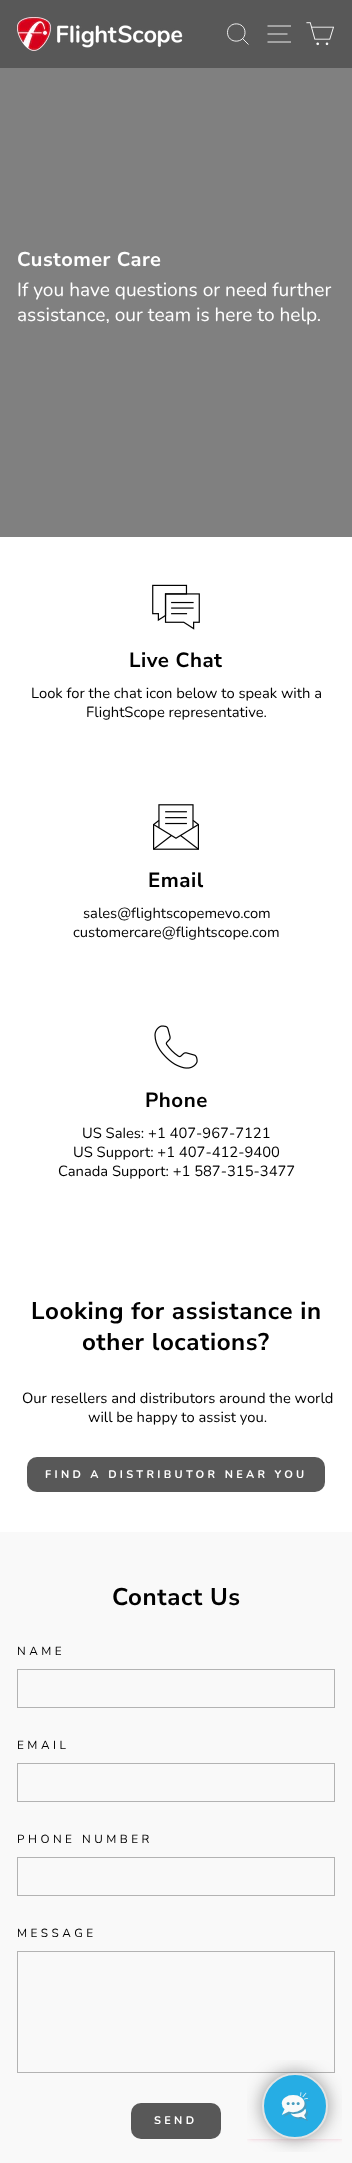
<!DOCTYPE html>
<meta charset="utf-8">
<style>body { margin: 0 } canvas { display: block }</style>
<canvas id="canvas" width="352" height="2163"></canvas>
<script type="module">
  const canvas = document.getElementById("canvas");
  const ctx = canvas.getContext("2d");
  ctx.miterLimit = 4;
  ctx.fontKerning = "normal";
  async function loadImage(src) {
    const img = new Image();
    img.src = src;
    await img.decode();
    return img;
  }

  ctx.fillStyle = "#ffffff";
  ctx.fillRect(0, 0, 352, 2163);
  ctx.fillStyle = "#585858";
  ctx.fillRect(0, 0, 352, 68);
  ctx.drawImage(await loadImage("img1.png"), 17, 17, 166, 34);
  ctx.beginPath();
  ctx.moveTo(245, 32.5);
  ctx.bezierCurveTo(245, 44, 227.5, 44, 227.5, 32.5);
  ctx.bezierCurveTo(227.5, 21, 245, 21, 245, 32.5);
  ctx.closePath();
  ctx.moveTo(248.5, 44.5);
  ctx.lineTo(242.5, 38.5);
  ctx.strokeStyle = "#ffffff";
  ctx.lineWidth = 0.9;
  ctx.stroke();
  ctx.beginPath();
  ctx.moveTo(267.5, 26);
  ctx.lineTo(291, 26);
  ctx.moveTo(267.5, 34);
  ctx.lineTo(287.5, 34);
  ctx.moveTo(267.5, 42);
  ctx.lineTo(291, 42);
  ctx.stroke();
  ctx.drawImage(await loadImage("img2.png"), 306, 22, 28, 24);
  ctx.fillStyle = "#808080";
  ctx.fillRect(0, 68, 352, 469);
  ctx.letterSpacing = "0.5px";
  ctx.font = "bold 20px Nunito Sans";
  ctx.fillStyle = "#ffffff";
  ctx.fillText("Customer Care", 17, 266);
  ctx.letterSpacing = "0px";
  ctx.font = "19.1px Nunito";
  ctx.fillText("If you have questions or need further", 17, 296);
  ctx.fillText("assistance, our team is here to help.", 17, 321);
  ctx.drawImage(await loadImage("img3.png"), 152, 584, 48, 46);
  ctx.letterSpacing = "0.5px";
  ctx.font = "bold 20.5px Nunito Sans";
  ctx.fillStyle = "#000000";
  ctx.fillText("Live Chat", 129, 667);
  ctx.letterSpacing = "0px";
  ctx.font = "14.75px Nunito";
  ctx.fillText("Look for the chat icon below to speak with a", 31, 698);
  ctx.fillText("FlightScope representative.", 86, 717);
  ctx.drawImage(await loadImage("img4.png"), 153, 804, 46, 46);
  ctx.letterSpacing = "0.5px";
  ctx.font = "bold 20.5px Nunito Sans";
  ctx.fillText("Email", 148, 887);
  ctx.letterSpacing = "0px";
  ctx.font = "14.75px Nunito";
  ctx.fillText("sales@flightscopemevo.com", 83, 918);
  ctx.fillText("customercare@flightscope.com", 73, 937);
  ctx.drawImage(await loadImage("img5.png"), 154, 1025, 44, 44);
  ctx.letterSpacing = "0.5px";
  ctx.font = "bold 20.5px Nunito Sans";
  ctx.fillText("Phone", 145, 1107);
  ctx.letterSpacing = "0px";
  ctx.font = "14.75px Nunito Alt";
  ctx.fillText("US Sales: +1 407-967-7121", 82, 1138);
  ctx.font = "14.75px Nunito";
  ctx.fillText("US Support: +1 407-412-9400", 73, 1157);
  ctx.fillText("Canada Support: +1 587-315-3477", 58, 1176);
  ctx.letterSpacing = "0.6px";
  ctx.font = "bold 24.1px Nunito Sans";
  ctx.fillText("Looking for assistance in", 31, 1319);
  ctx.fillText("other locations?", 82, 1350);
  ctx.letterSpacing = "0px";
  ctx.font = "14.75px Nunito";
  ctx.fillText("Our resellers and distributors around the world", 22, 1403);
  ctx.fillText("will be happy to assist you.", 88, 1422);
  ctx.fillStyle = "#585858";
  ctx.beginPath();
  ctx.roundRect(27, 1457, 298, 35, 10);
  ctx.fill();
  ctx.letterSpacing = "3.3px";
  ctx.font = "bold 11px Nunito";
  ctx.fillStyle = "#ffffff";
  ctx.fillText("FIND A DISTRIBUTOR NEAR YOU", 45, 1478);
  ctx.fillStyle = "#f9f9f9";
  ctx.fillRect(0, 1532, 352, 631);
  ctx.letterSpacing = "0.6px";
  ctx.font = "bold 24.1px Nunito Sans";
  ctx.fillStyle = "#000000";
  ctx.fillText("Contact Us", 112, 1605);
  ctx.letterSpacing = "3.5px";
  ctx.font = "11.75px Nunito";
  ctx.fillText("NAME", 17, 1655);
  ctx.strokeStyle = "#b3b3b3";
  ctx.lineWidth = 1;
  ctx.strokeRect(17.5, 1669.5, 317, 38);
  ctx.fillText("EMAIL", 17, 1749);
  ctx.strokeRect(17.5, 1763.5, 317, 38);
  ctx.fillText("PHONE NUMBER", 17, 1843);
  ctx.strokeRect(17.5, 1857.5, 317, 38);
  ctx.fillText("MESSAGE", 17, 1937);
  ctx.strokeRect(17.5, 1951.5, 317, 121);
  ctx.fillStyle = "#585858";
  ctx.beginPath();
  ctx.roundRect(131, 2103, 90, 36, 10);
  ctx.fill();
  ctx.letterSpacing = "3.3px";
  ctx.font = "bold 11px Nunito";
  ctx.fillStyle = "#ffffff";
  ctx.fillText("SEND", 154, 2124);
  ctx.drawImage(await loadImage("img6.png"), 247, 2060, 95, 92);
</script>
